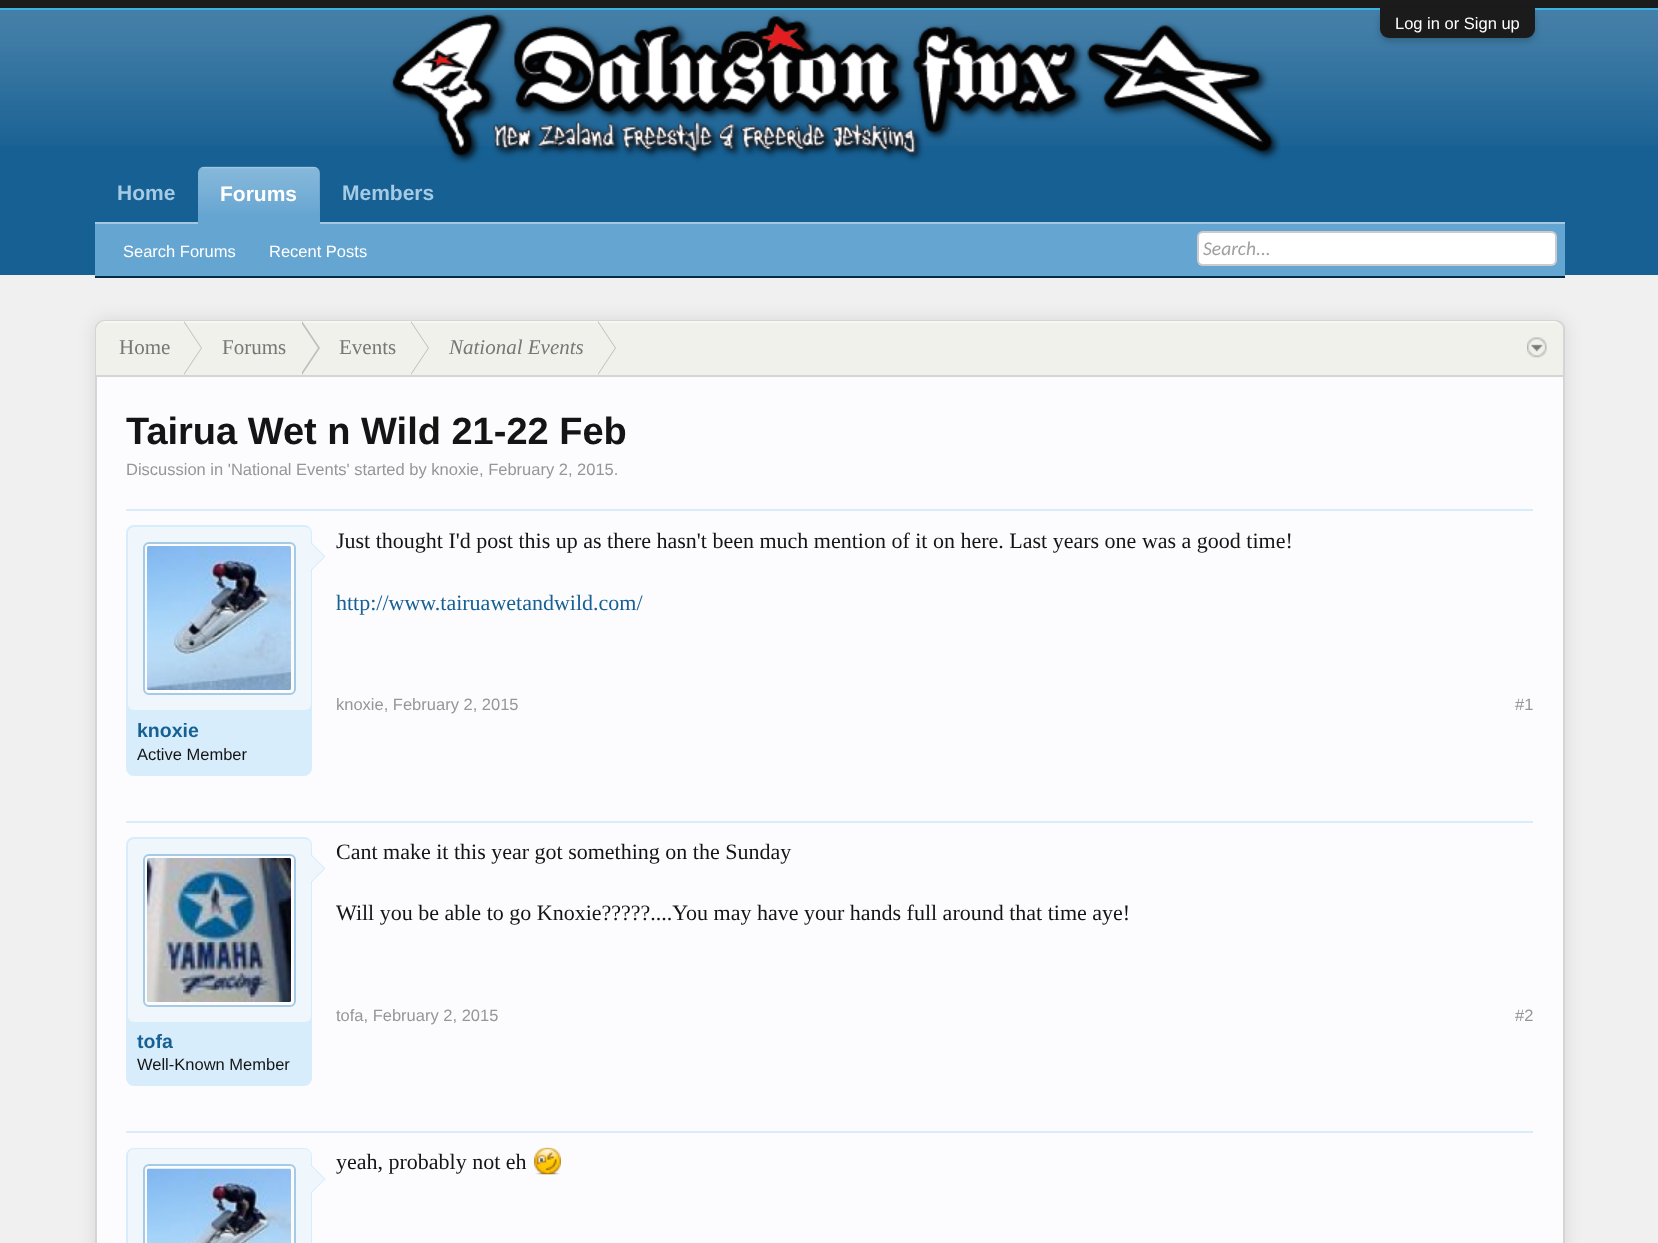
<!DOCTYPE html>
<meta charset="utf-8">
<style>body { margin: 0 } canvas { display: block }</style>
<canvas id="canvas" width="1658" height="1243"></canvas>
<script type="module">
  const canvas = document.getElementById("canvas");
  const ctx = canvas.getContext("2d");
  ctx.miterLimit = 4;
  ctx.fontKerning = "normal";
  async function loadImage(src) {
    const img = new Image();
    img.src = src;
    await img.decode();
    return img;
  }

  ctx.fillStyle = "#f0f0f0";
  ctx.fillRect(0, 0, 1658, 1243);
  ctx.fillStyle = "#1b1b1b";
  ctx.fillRect(0, 0, 1658, 8);
  ctx.fillStyle = "#3cb2e3";
  ctx.fillRect(0, 8, 1658, 2);
  ctx.fillStyle = "#176093";
  ctx.fillRect(0, 10, 1658, 265);
  ctx.drawImage(await loadImage("img1.png"), 0, 10, 1658, 136);
  ctx.fillStyle = "rgba(0, 0, 0, 0.2)";
  ctx.filter = "blur(3px)";
  ctx.beginPath();
  ctx.roundRect(1380, 11, 155, 30, 9);
  ctx.fill();
  ctx.filter = "none";
  ctx.fillStyle = "#1b1b1b";
  ctx.beginPath();
  ctx.roundRect(1380, 8, 155, 30, [0, 0, 9, 9]);
  ctx.fill();
  ctx.font = "16.5px Liberation Sans";
  ctx.fillStyle = "#ffffff";
  ctx.fillText("Log in or Sign up", 1395, 29);
  ctx.drawImage(await loadImage("img2.png"), 390, 12, 891, 152);
  ctx.font = "bold 21px Liberation Sans";
  ctx.fillStyle = "#a5cae4";
  ctx.fillText("Home", 117, 200);
  ctx.fillText("Members", 342, 200);
  ctx.fillStyle = "#a4cae3";
  ctx.fillRect(95, 222, 1470, 2);
  ctx.fillStyle = "#65a5d1";
  ctx.beginPath();
  ctx.roundRect(198, 167, 122, 57, [6, 6, 0, 0]);
  ctx.fill();
  ctx.drawImage(await loadImage("img3.png"), 198, 166, 122, 47);
  ctx.fillStyle = "#ffffff";
  ctx.fillText("Forums", 220, 201);
  ctx.fillStyle = "#65a5d1";
  ctx.fillRect(95, 224, 1470, 52);
  ctx.fillStyle = "#032a46";
  ctx.fillRect(95, 276, 1470, 2);
  ctx.font = "16.5px Liberation Sans";
  ctx.fillStyle = "#ffffff";
  ctx.fillText("Search Forums", 123, 257);
  ctx.fillText("Recent Posts", 269, 257);
  ctx.beginPath();
  ctx.roundRect(1197, 231, 360, 35, 6);
  ctx.fill();
  ctx.beginPath();
  ctx.roundRect(1198, 232, 358, 33, 5);
  ctx.strokeStyle = "rgba(0, 0, 0, 0.2)";
  ctx.lineWidth = 2;
  ctx.stroke();
  ctx.font = "italic 19.5px Carlito";
  ctx.fillStyle = "#a0a0a0";
  ctx.fillText("Search...", 1203, 255);
  ctx.fillStyle = "rgba(0, 0, 0, 0.1)";
  ctx.filter = "blur(9px)";
  ctx.beginPath();
  ctx.roundRect(95, 320, 1470, 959, 9);
  ctx.fill();
  ctx.filter = "none";
  ctx.fillStyle = "#fcfcff";
  ctx.beginPath();
  ctx.roundRect(96, 321, 1468, 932, 8);
  ctx.fill();
  ctx.strokeStyle = "#d5d5d5";
  ctx.stroke();
  ctx.fillStyle = "#f1f1ec";
  ctx.beginPath();
  ctx.roundRect(96, 321, 1467, 56, [9, 9, 0, 0]);
  ctx.fill();
  ctx.drawImage(await loadImage("img4.png"), 101, 321, 1457, 2);
  ctx.fillStyle = "#d5d5d5";
  ctx.fillRect(96, 375, 1467, 2);
  ctx.font = "21px Liberation Serif";
  ctx.fillStyle = "#777777";
  ctx.fillText("Home", 119, 354);
  ctx.fillStyle = "#bebebe";
  ctx.beginPath();
  ctx.moveTo(184, 375);
  ctx.lineTo(184, 321);
  ctx.lineTo(202, 348);
  ctx.closePath();
  ctx.fill();
  ctx.fillStyle = "#f1f1ec";
  ctx.beginPath();
  ctx.moveTo(183, 375);
  ctx.lineTo(183, 321);
  ctx.lineTo(201, 348);
  ctx.closePath();
  ctx.fill();
  ctx.fillStyle = "#777777";
  ctx.fillText("Forums", 222, 354);
  ctx.fillStyle = "#bebebe";
  ctx.beginPath();
  ctx.moveTo(302, 375);
  ctx.lineTo(302, 321);
  ctx.lineTo(320, 348);
  ctx.closePath();
  ctx.fill();
  ctx.fillStyle = "#f1f1ec";
  ctx.beginPath();
  ctx.moveTo(300, 375);
  ctx.lineTo(300, 321);
  ctx.lineTo(318, 348);
  ctx.closePath();
  ctx.fill();
  ctx.fillStyle = "#777777";
  ctx.fillText("Events", 339, 354);
  ctx.fillStyle = "#bebebe";
  ctx.beginPath();
  ctx.moveTo(411, 375);
  ctx.lineTo(411, 321);
  ctx.lineTo(429, 348);
  ctx.closePath();
  ctx.fill();
  ctx.fillStyle = "#f1f1ec";
  ctx.beginPath();
  ctx.moveTo(410, 375);
  ctx.lineTo(410, 321);
  ctx.lineTo(428, 348);
  ctx.closePath();
  ctx.fill();
  ctx.font = "italic 21px Liberation Serif";
  ctx.fillStyle = "#777777";
  ctx.fillText("National Events", 449, 354);
  ctx.fillStyle = "#bebebe";
  ctx.beginPath();
  ctx.moveTo(598, 375);
  ctx.lineTo(598, 321);
  ctx.lineTo(616, 348);
  ctx.closePath();
  ctx.fill();
  ctx.fillStyle = "#f1f1ec";
  ctx.beginPath();
  ctx.moveTo(597, 375);
  ctx.lineTo(597, 321);
  ctx.lineTo(615, 348);
  ctx.closePath();
  ctx.fill();
  ctx.drawImage(await loadImage("img5.png"), 1527, 337, 20, 21);
  ctx.font = "bold 38px Liberation Sans";
  ctx.fillStyle = "#141414";
  ctx.fillText("Tairua Wet n Wild 21-22 Feb", 126, 444);
  ctx.font = "16.5px Liberation Sans";
  ctx.fillStyle = "#969696";
  ctx.fillText("Discussion in 'National Events' started by knoxie, February 2, 2015.", 126, 475);
  ctx.fillStyle = "#d7edfc";
  ctx.fillRect(126, 509, 1407, 2);
  ctx.font = "22px Liberation Serif";
  ctx.fillStyle = "#141414";
  ctx.fillText("Just thought I'd post this up as there hasn't been much mention of it on here. Last years one was a good time!", 336, 548);
  ctx.fillStyle = "#176093";
  ctx.fillText("http://www.tairuawetandwild.com/", 336, 610);
  ctx.font = "16.5px Liberation Sans";
  ctx.fillStyle = "#969696";
  ctx.fillText("knoxie, February 2, 2015", 336, 710);
  ctx.fillText("#1", 1515, 710);
  ctx.fillStyle = "#d7edfc";
  ctx.beginPath();
  ctx.roundRect(127, 526, 184, 249, 7);
  ctx.fill();
  ctx.strokeStyle = "#d7edfc";
  ctx.stroke();
  ctx.fillStyle = "#f0f7fc";
  ctx.beginPath();
  ctx.roundRect(128, 527, 183, 183, 6);
  ctx.fill();
  ctx.fillStyle = "#fcfcff";
  ctx.beginPath();
  ctx.roundRect(144, 543, 151, 151, 5);
  ctx.fill();
  ctx.strokeStyle = "#a5cae4";
  ctx.stroke();
  ctx.drawImage(await loadImage("img6.png"), 147, 546, 144, 144);
  ctx.fillStyle = "#d7edfc";
  ctx.beginPath();
  ctx.moveTo(310.5, 571.5);
  ctx.lineTo(310.5, 541.5);
  ctx.lineTo(325.5, 556.5);
  ctx.closePath();
  ctx.fill();
  ctx.fillStyle = "#f0f7fc";
  ctx.beginPath();
  ctx.moveTo(309, 571.5);
  ctx.lineTo(309, 541.5);
  ctx.lineTo(324, 556.5);
  ctx.closePath();
  ctx.fill();
  ctx.font = "bold 19.5px Liberation Sans";
  ctx.fillStyle = "#176093";
  ctx.fillText("knoxie", 137, 737);
  ctx.font = "16.5px Liberation Sans";
  ctx.fillStyle = "#141414";
  ctx.fillText("Active Member", 137, 760);
  ctx.fillStyle = "#d7edfc";
  ctx.fillRect(126, 821, 1407, 2);
  ctx.font = "22px Liberation Serif";
  ctx.fillStyle = "#141414";
  ctx.fillText("Cant make it this year got something on the Sunday", 336, 859);
  ctx.fillText("Will you be able to go Knoxie?????....You may have your hands full around that time aye!", 336, 920);
  ctx.font = "16.5px Liberation Sans";
  ctx.fillStyle = "#969696";
  ctx.fillText("tofa, February 2, 2015", 336, 1021);
  ctx.fillText("#2", 1515, 1021);
  ctx.fillStyle = "#d7edfc";
  ctx.beginPath();
  ctx.roundRect(127, 838, 184, 247, 7);
  ctx.fill();
  ctx.strokeStyle = "#d7edfc";
  ctx.stroke();
  ctx.fillStyle = "#f0f7fc";
  ctx.beginPath();
  ctx.roundRect(128, 839, 183, 183, 6);
  ctx.fill();
  ctx.fillStyle = "#fcfcff";
  ctx.beginPath();
  ctx.roundRect(144, 855, 151, 151, 5);
  ctx.fill();
  ctx.strokeStyle = "#a5cae4";
  ctx.stroke();
  ctx.drawImage(await loadImage("img7.png"), 147, 858, 144, 144);
  ctx.fillStyle = "#d7edfc";
  ctx.beginPath();
  ctx.moveTo(310.5, 883.5);
  ctx.lineTo(310.5, 853.5);
  ctx.lineTo(325.5, 868.5);
  ctx.closePath();
  ctx.fill();
  ctx.fillStyle = "#f0f7fc";
  ctx.beginPath();
  ctx.moveTo(309, 883.5);
  ctx.lineTo(309, 853.5);
  ctx.lineTo(324, 868.5);
  ctx.closePath();
  ctx.fill();
  ctx.save();
  ctx.beginPath();
  ctx.rect(137, 1031, 165, 24);
  ctx.clip();
  ctx.font = "bold 19.5px Liberation Sans";
  ctx.fillStyle = "#176093";
  ctx.fillText("tofa", 137, 1048);
  ctx.restore();
  ctx.fillStyle = "#141414";
  ctx.fillText("Well-Known Member", 137, 1070);
  ctx.fillStyle = "#d7edfc";
  ctx.fillRect(126, 1131, 1407, 2);
  ctx.beginPath();
  ctx.roundRect(127, 1149, 184, 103, 7);
  ctx.strokeStyle = "#d7edfc";
  ctx.stroke();
  ctx.fillStyle = "#f0f7fc";
  ctx.beginPath();
  ctx.roundRect(128, 1149, 183, 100, 6);
  ctx.fill();
  ctx.fillStyle = "#fcfcff";
  ctx.beginPath();
  ctx.roundRect(144, 1165, 151, 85, 5);
  ctx.fill();
  ctx.strokeStyle = "#a5cae4";
  ctx.stroke();
  ctx.drawImage(await loadImage("img8.png"), 147, 1168, 144, 75);
  ctx.fillStyle = "#d7edfc";
  ctx.beginPath();
  ctx.moveTo(310.5, 1194);
  ctx.lineTo(310.5, 1164);
  ctx.lineTo(325.5, 1179);
  ctx.closePath();
  ctx.fill();
  ctx.fillStyle = "#f0f7fc";
  ctx.beginPath();
  ctx.moveTo(309, 1194);
  ctx.lineTo(309, 1164);
  ctx.lineTo(324, 1179);
  ctx.closePath();
  ctx.fill();
  ctx.font = "22px Liberation Serif";
  ctx.fillStyle = "#141414";
  ctx.fillText("yeah, probably not eh", 336, 1169);
  ctx.drawImage(await loadImage("img9.png"), 534, 1147, 27, 28);
</script>
